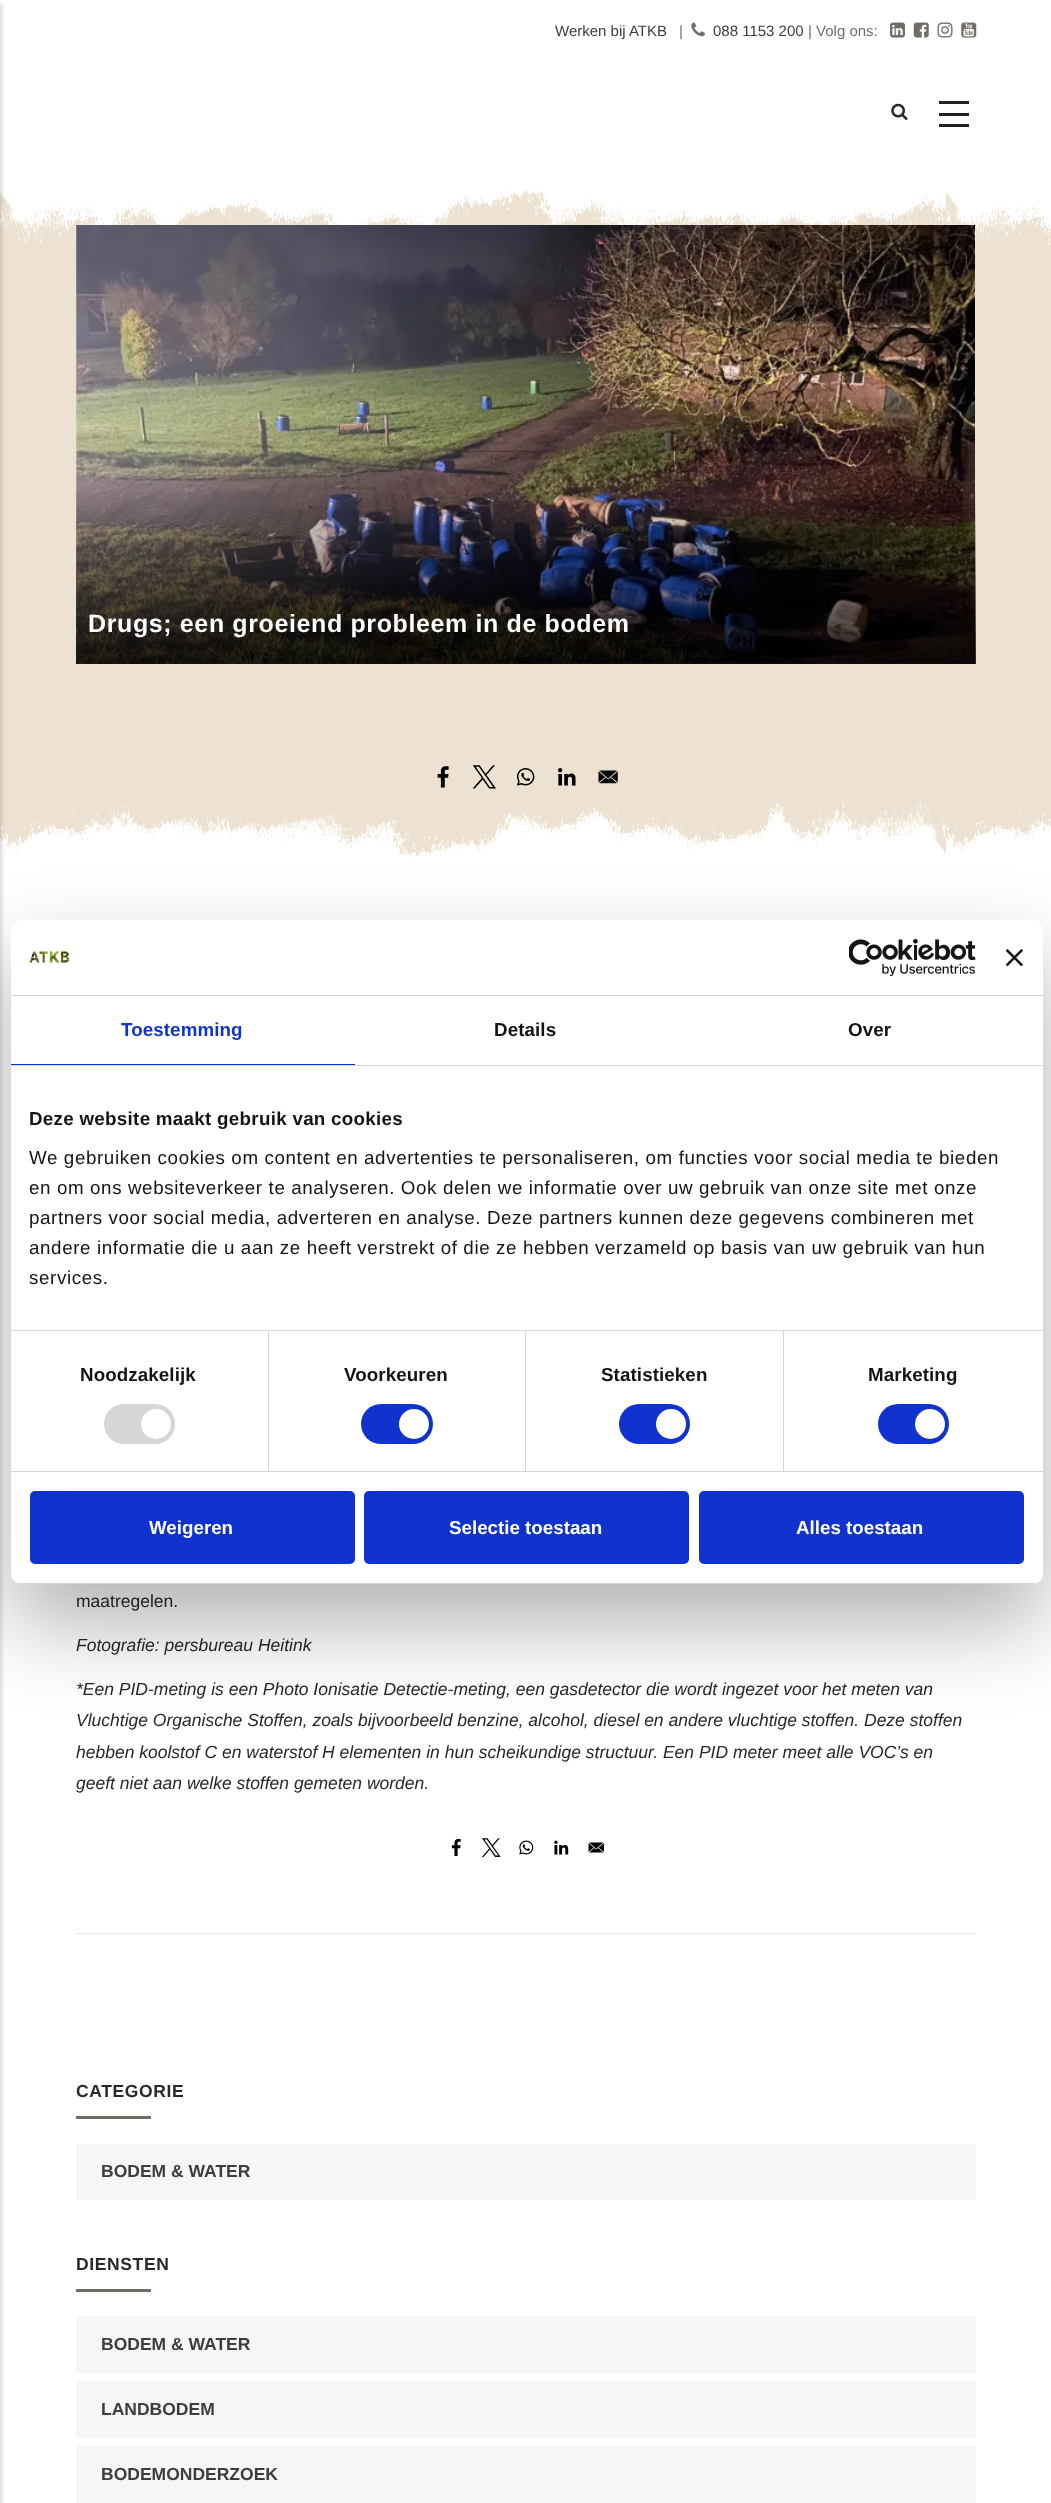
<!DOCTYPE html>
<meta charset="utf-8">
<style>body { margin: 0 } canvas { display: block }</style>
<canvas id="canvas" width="1051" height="2503"></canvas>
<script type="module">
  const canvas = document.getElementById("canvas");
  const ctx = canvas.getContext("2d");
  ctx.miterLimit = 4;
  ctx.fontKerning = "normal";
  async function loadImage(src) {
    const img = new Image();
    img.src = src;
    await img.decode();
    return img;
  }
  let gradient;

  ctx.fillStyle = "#ffffff";
  ctx.fillRect(0, 0, 1051, 2503);
  ctx.drawImage(await loadImage("img7.png"), 0, 187, 1051, 673);
  ctx.fillStyle = "rgba(0, 0, 0, 0.2)";
  ctx.filter = "blur(2.5px)";
  ctx.beginPath();
  ctx.rect(-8, 4, 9, 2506);
  ctx.fill();
  ctx.filter = "none";
  ctx.drawImage(await loadImage("img1.png"), 891, 103, 17, 17);
  ctx.fillStyle = "#222222";
  ctx.fillRect(939, 101, 30, 3);
  ctx.fillRect(939, 113, 30, 3);
  ctx.fillRect(939, 124, 30, 3);
  ctx.font = "15px Liberation Sans";
  ctx.fillStyle = "#3d3d3d";
  ctx.fillText("Werken bij ATKB", 555, 36);
  ctx.fillStyle = "#726e66";
  ctx.fillText("|", 679, 36);
  ctx.drawImage(await loadImage("img2.png"), 691, 22, 14, 15);
  ctx.fillStyle = "#3d3d3d";
  ctx.fillText("088 1153 200", 713, 36);
  ctx.fillStyle = "#726e66";
  ctx.fillText("| Volg ons:", 808, 36);
  ctx.drawImage(await loadImage("img3.png"), 890, 22, 15, 16);
  ctx.drawImage(await loadImage("img4.png"), 913, 22, 16, 16);
  ctx.drawImage(await loadImage("img5.png"), 937, 22, 16, 16);
  ctx.drawImage(await loadImage("img6.png"), 961, 22, 16, 16);
  ctx.drawImage(await loadImage("img8.png"), 76, 225, 899, 439);
  gradient = ctx.createLinearGradient(526, 664, 526, 488);
  gradient.addColorStop(0, "rgba(0, 0, 0, 0.85)");
  gradient.addColorStop(1, "rgba(0, 0, 0, 0)");
  ctx.fillStyle = gradient;
  ctx.fillRect(76, 492, 900, 172);
  ctx.letterSpacing = "0.62px";
  ctx.font = "bold 25px Liberation Sans";
  ctx.fillStyle = "#ffffff";
  ctx.fillText("Drugs; een groeiend probleem in de bodem", 88, 632);
  ctx.drawImage(await loadImage("img9.png"), 437, 766, 12, 22);
  ctx.drawImage(await loadImage("img10.png"), 472, 765, 24, 24);
  ctx.drawImage(await loadImage("img11.png"), 517, 768, 18, 18);
  ctx.drawImage(await loadImage("img12.png"), 558, 768, 18, 18);
  ctx.drawImage(await loadImage("img13.png"), 598, 770, 20, 14);
  ctx.letterSpacing = "0px";
  ctx.font = "17.5px Liberation Sans";
  ctx.fillStyle = "#282828";
  ctx.fillText("maatregelen.", 76, 1607);
  ctx.font = "italic 17.5px Liberation Sans";
  ctx.fillText("Fotografie: persbureau Heitink", 76, 1651);
  ctx.fillText("*Een PID-meting is een Photo Ionisatie Detectie-meting, een gasdetector die wordt ingezet voor het meten van", 76, 1695);
  ctx.fillText("Vluchtige Organische Stoffen, zoals bijvoorbeeld benzine, alcohol, diesel en andere vluchtige stoffen. Deze stoffen", 76, 1726);
  ctx.fillText("hebben koolstof C en waterstof H elementen in hun scheikundige structuur. Een PID meter meet alle VOC’s en", 76, 1758);
  ctx.fillText("geeft niet aan welke stoffen gemeten worden.", 76, 1789);
  ctx.drawImage(await loadImage("img14.png"), 451, 1839, 10, 17);
  ctx.drawImage(await loadImage("img15.png"), 482, 1838, 19, 19);
  ctx.drawImage(await loadImage("img16.png"), 519, 1840, 15, 15);
  ctx.drawImage(await loadImage("img17.png"), 554, 1840, 15, 15);
  ctx.drawImage(await loadImage("img18.png"), 588, 1842, 16, 11);
  ctx.fillStyle = "#e6e6e6";
  ctx.fillRect(76, 1933, 900, 1);
  ctx.letterSpacing = "0.62px";
  ctx.font = "bold 17.5px Liberation Sans";
  ctx.fillStyle = "#282828";
  ctx.fillText("CATEGORIE", 76, 2097);
  ctx.fillStyle = "#726e66";
  ctx.fillRect(76, 2116, 75, 3);
  ctx.fillStyle = "#f6f6f6";
  ctx.fillRect(76, 2144, 900, 56);
  ctx.letterSpacing = "0px";
  ctx.fillStyle = "#3d3d3d";
  ctx.fillText("BODEM & WATER", 101, 2177);
  ctx.letterSpacing = "0.62px";
  ctx.fillStyle = "#282828";
  ctx.fillText("DIENSTEN", 76, 2270);
  ctx.fillStyle = "#726e66";
  ctx.fillRect(76, 2289, 75, 3);
  ctx.fillStyle = "#f6f6f6";
  ctx.fillRect(76, 2316, 900, 57);
  ctx.letterSpacing = "0px";
  ctx.fillStyle = "#3d3d3d";
  ctx.fillText("BODEM & WATER", 101, 2350);
  ctx.fillStyle = "#f6f6f6";
  ctx.fillRect(76, 2381, 900, 57);
  ctx.fillStyle = "#3d3d3d";
  ctx.fillText("LANDBODEM", 101, 2415);
  ctx.fillStyle = "#f6f6f6";
  ctx.fillRect(76, 2446, 900, 57);
  ctx.fillStyle = "#3d3d3d";
  ctx.fillText("BODEMONDERZOEK", 101, 2480);
  ctx.fillStyle = "rgba(0, 0, 0, 0.3)";
  ctx.filter = "blur(42.5px)";
  ctx.beginPath();
  ctx.roundRect(11, 960, 1032, 664, 10);
  ctx.fill();
  ctx.filter = "none";
  ctx.fillStyle = "#ffffff";
  ctx.beginPath();
  ctx.roundRect(11, 920, 1032, 664, 10);
  ctx.fill();
  ctx.fillStyle = "#d6d6d6";
  ctx.fillRect(11, 995, 1032, 1);
  ctx.drawImage(await loadImage("img19.png"), 29, 950, 41, 13);
  ctx.drawImage(await loadImage("img20.png"), 849, 939, 127, 37);
  ctx.drawImage(await loadImage("img21.png"), 1006, 949, 17, 17);
  ctx.fillRect(11, 1065, 1032, 1);
  ctx.fillStyle = "#1032cf";
  ctx.fillRect(11, 1064, 344, 1);
  ctx.letterSpacing = "0.1px";
  ctx.font = "bold 18.75px Liberation Sans";
  ctx.fillText("Toestemming", 121, 1036);
  ctx.fillStyle = "#141414";
  ctx.fillText("Details", 494, 1036);
  ctx.fillText("Over", 848, 1036);
  ctx.fillStyle = "#d6d6d6";
  ctx.fillRect(11, 1330, 1032, 1);
  ctx.letterSpacing = "0.3px";
  ctx.fillStyle = "#141414";
  ctx.fillText("Deze website maakt gebruik van cookies", 29, 1125);
  ctx.letterSpacing = "0.62px";
  ctx.font = "18.75px Liberation Sans";
  ctx.fillText("We gebruiken cookies om content en advertenties te personaliseren, om functies voor social media te bieden", 29, 1164);
  ctx.fillText("en om ons websiteverkeer te analyseren. Ook delen we informatie over uw gebruik van onze site met onze", 29, 1194);
  ctx.fillText("partners voor social media, adverteren en analyse. Deze partners kunnen deze gegevens combineren met", 29, 1224);
  ctx.fillText("andere informatie die u aan ze heeft verstrekt of die ze hebben verzameld op basis van uw gebruik van hun", 29, 1254);
  ctx.fillText("services.", 29, 1284);
  ctx.fillStyle = "#d6d6d6";
  ctx.fillRect(11, 1471, 1032, 1);
  ctx.fillRect(268, 1331, 1, 140);
  ctx.letterSpacing = "0.1px";
  ctx.font = "bold 18.75px Liberation Sans";
  ctx.fillStyle = "#141414";
  ctx.fillText("Noodzakelijk", 80, 1381);
  ctx.fillStyle = "#d6d6d6";
  ctx.beginPath();
  ctx.roundRect(104, 1404, 71, 40, 20);
  ctx.fill();
  ctx.fillStyle = "#ffffff";
  ctx.beginPath();
  ctx.arc(156, 1424, 15, 0, Math.PI * 2);
  ctx.fill();
  ctx.fillStyle = "#d6d6d6";
  ctx.fillRect(525, 1331, 1, 140);
  ctx.fillStyle = "#141414";
  ctx.fillText("Voorkeuren", 344, 1381);
  ctx.fillStyle = "#1032cf";
  ctx.beginPath();
  ctx.roundRect(361, 1404, 72, 40, 20);
  ctx.fill();
  ctx.fillStyle = "#ffffff";
  ctx.beginPath();
  ctx.arc(414, 1424, 15, 0, Math.PI * 2);
  ctx.fill();
  ctx.fillStyle = "#d6d6d6";
  ctx.fillRect(783, 1331, 1, 140);
  ctx.fillStyle = "#141414";
  ctx.fillText("Statistieken", 601, 1381);
  ctx.fillStyle = "#1032cf";
  ctx.beginPath();
  ctx.roundRect(619, 1404, 71, 40, 20);
  ctx.fill();
  ctx.fillStyle = "#ffffff";
  ctx.beginPath();
  ctx.arc(671, 1424, 15, 0, Math.PI * 2);
  ctx.fill();
  ctx.fillStyle = "#141414";
  ctx.fillText("Marketing", 868, 1381);
  ctx.fillStyle = "#1032cf";
  ctx.beginPath();
  ctx.roundRect(878, 1404, 71, 40, 20);
  ctx.fill();
  ctx.fillStyle = "#ffffff";
  ctx.beginPath();
  ctx.arc(930, 1424, 15, 0, Math.PI * 2);
  ctx.fill();
  ctx.save();
  ctx.beginPath();
  ctx.roundRect(11, 920, 1032, 664, 10);
  ctx.clip();
  ctx.fillStyle = "#d6d6d6";
  ctx.fillRect(11, 1583, 1032, 1);
  ctx.restore();
  ctx.fillStyle = "#1032cf";
  ctx.beginPath();
  ctx.roundRect(31.5, 1492.5, 322, 70, 3.5);
  ctx.fill();
  ctx.strokeStyle = "#1032cf";
  ctx.lineWidth = 3;
  ctx.stroke();
  ctx.letterSpacing = "0px";
  ctx.fillStyle = "#ffffff";
  ctx.fillText("Weigeren", 149, 1534);
  ctx.fillStyle = "#1032cf";
  ctx.beginPath();
  ctx.roundRect(365.5, 1492.5, 322, 70, 3.5);
  ctx.fill();
  ctx.stroke();
  ctx.fillStyle = "#ffffff";
  ctx.fillText("Selectie toestaan", 449, 1534);
  ctx.fillStyle = "#1032cf";
  ctx.beginPath();
  ctx.roundRect(700.5, 1492.5, 322, 70, 3.5);
  ctx.fill();
  ctx.stroke();
  ctx.fillStyle = "#ffffff";
  ctx.fillText("Alles toestaan", 796, 1534);
</script>
